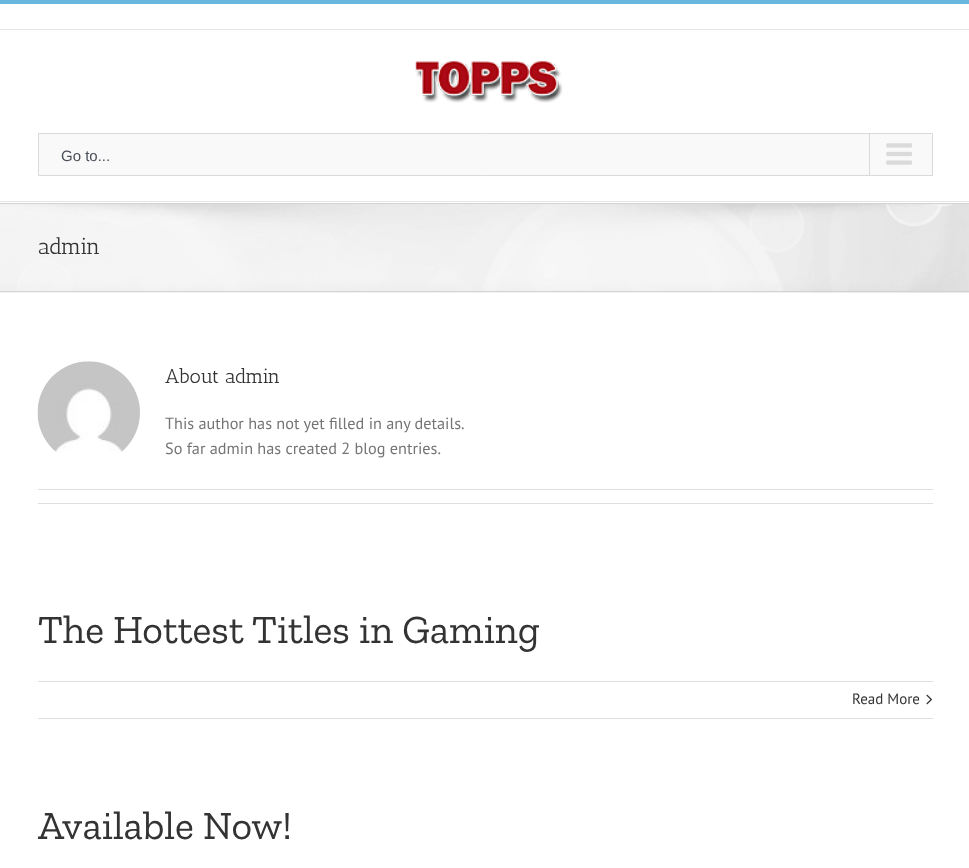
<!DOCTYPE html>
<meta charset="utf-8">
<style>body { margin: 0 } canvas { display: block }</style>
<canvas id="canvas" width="969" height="868"></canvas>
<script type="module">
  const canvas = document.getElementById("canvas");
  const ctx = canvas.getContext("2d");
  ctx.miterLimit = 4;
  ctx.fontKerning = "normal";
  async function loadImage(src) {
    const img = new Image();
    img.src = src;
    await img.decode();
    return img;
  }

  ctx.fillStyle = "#ffffff";
  ctx.fillRect(0, 0, 969, 868);
  ctx.fillStyle = "#67b7e1";
  ctx.fillRect(0, 0, 969, 4);
  ctx.fillStyle = "#e5e5e5";
  ctx.fillRect(0, 29, 969, 1);
  ctx.fillRect(0, 201, 969, 1);
  ctx.drawImage(await loadImage("img1.png"), 415, 61, 148, 42);
  ctx.fillStyle = "#f9f9f9";
  ctx.beginPath();
  ctx.rect(38.5, 133.5, 894, 42);
  ctx.fill();
  ctx.strokeStyle = "#dadada";
  ctx.stroke();
  ctx.font = "15px Liberation Sans";
  ctx.fillStyle = "#4a4e57";
  ctx.fillText("Go to...", 61, 161);
  ctx.fillStyle = "#dadada";
  ctx.fillRect(869, 134, 1, 41);
  ctx.drawImage(await loadImage("img2.png"), 886, 143, 26, 22);
  ctx.fillStyle = "#f6f6f6";
  ctx.fillRect(0, 204, 969, 89);
  ctx.drawImage(await loadImage("img3.png"), 0, 204, 969, 89);
  ctx.fillStyle = "#d2d3d4";
  ctx.fillRect(0, 203, 969, 1);
  ctx.fillRect(0, 291, 969, 1);
  ctx.font = "22.5px Antic Slab";
  ctx.fillStyle = "#333333";
  ctx.fillText("admin", 38, 254);
  ctx.drawImage(await loadImage("img4.png"), 37, 361, 103, 91);
  ctx.font = "20px Antic Slab";
  ctx.fillText("About admin", 165, 383);
  ctx.font = "16.25px PT Sans";
  ctx.fillStyle = "#747474";
  ctx.fillText("This author has not yet filled in any details.", 165, 429);
  ctx.fillText("So far admin has created 2 blog entries.", 165, 454);
  ctx.fillStyle = "#e0dede";
  ctx.fillRect(38, 489, 895, 1);
  ctx.fillRect(38, 503, 895, 1);
  ctx.font = "40px Zilla Slab";
  ctx.fillStyle = "#333333";
  ctx.fillText("The Hottest Titles in Gaming", 38, 643);
  ctx.fillStyle = "#e0dede";
  ctx.fillRect(38, 681, 895, 1);
  ctx.fillRect(38, 718, 895, 1);
  ctx.font = "15px PT Sans";
  ctx.fillStyle = "#333333";
  ctx.fillText("Read More", 852, 704);
  ctx.drawImage(await loadImage("img5.png"), 926, 694, 6, 11);
  ctx.font = "40px Zilla Slab";
  ctx.fillText("Available Now!", 38, 839);
</script>
